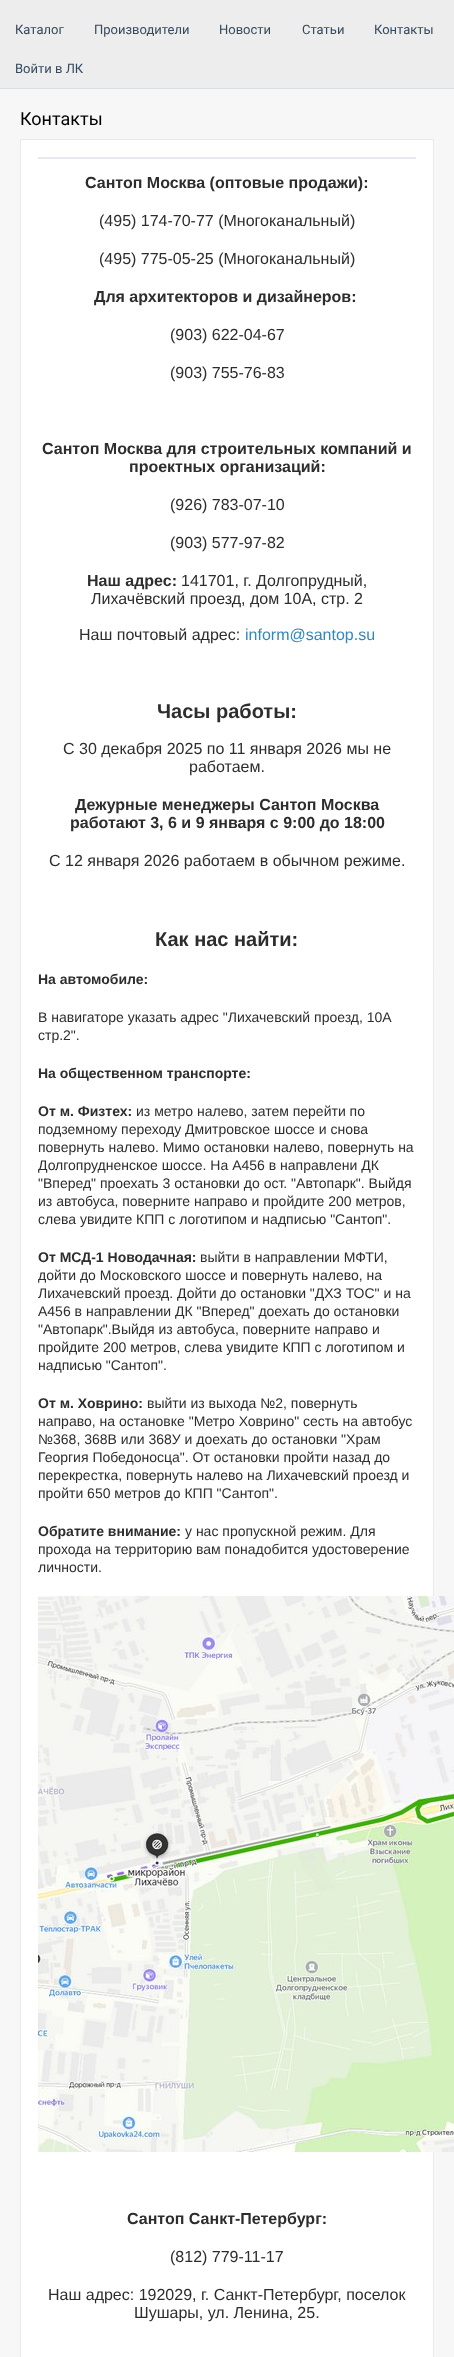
<!DOCTYPE html>
<meta charset="utf-8">
<style>body { margin: 0 } canvas { display: block }</style>
<canvas id="canvas" width="454" height="2357"></canvas>
<script type="module">
  const canvas = document.getElementById("canvas");
  const ctx = canvas.getContext("2d");
  ctx.miterLimit = 4;
  ctx.fontKerning = "normal";
  async function loadImage(src) {
    const img = new Image();
    img.src = src;
    await img.decode();
    return img;
  }

  ctx.fillStyle = "#f7f7f7";
  ctx.fillRect(0, 0, 454, 2357);
  ctx.fillStyle = "#ededed";
  ctx.fillRect(0, 0, 454, 88);
  ctx.fillStyle = "#d9dee4";
  ctx.fillRect(0, 88, 454, 1);
  ctx.font = "13px Roboto";
  ctx.fillStyle = "#34495e";
  ctx.fillText("Каталог", 15, 34);
  ctx.fillText("Производители", 94, 34);
  ctx.fillText("Новости", 219, 34);
  ctx.fillText("Статьи", 302, 34);
  ctx.fillText("Контакты", 374, 34);
  ctx.fillText("Войти в ЛК", 15, 73);
  ctx.font = "18px Roboto";
  ctx.fillStyle = "#000000";
  ctx.fillText("Контакты", 20, 125);
  ctx.fillStyle = "#ffffff";
  ctx.beginPath();
  ctx.rect(20.5, 139.5, 413, 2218);
  ctx.fill();
  ctx.strokeStyle = "#e6e9ed";
  ctx.stroke();
  ctx.fillStyle = "#e6e9ed";
  ctx.fillRect(38, 157, 378, 2);
  ctx.font = "bold 16px Liberation Sans";
  ctx.fillStyle = "#2d2d2d";
  ctx.fillText("Сантоп Москва (оптовые продажи):", 85, 188);
  ctx.font = "16px Liberation Sans";
  ctx.fillText("(495) 174-70-77 (Многоканальный)", 99, 226);
  ctx.fillText("(495) 775-05-25 (Многоканальный)", 99, 264);
  ctx.font = "bold 16px Liberation Sans";
  ctx.fillText("Для архитекторов и дизайнеров:", 94, 302);
  ctx.font = "16px Liberation Sans";
  ctx.fillText("(903) 622-04-67", 170, 340);
  ctx.fillText("(903) 755-76-83", 170, 378);
  ctx.font = "bold 16px Liberation Sans";
  ctx.fillText("Сантоп Москва для строительных компаний и", 42, 454);
  ctx.fillText("проектных организаций:", 129, 472);
  ctx.font = "16px Liberation Sans";
  ctx.fillText("(926) 783-07-10", 170, 510);
  ctx.fillText("(903) 577-97-82", 170, 548);
  ctx.font = "bold 16px Liberation Sans";
  ctx.fillText("Наш адрес:", 87, 586);
  ctx.font = "16px Liberation Sans";
  ctx.fillText("141701, г. Долгопрудный,", 181, 586);
  ctx.fillText("Лихачёвский проезд, дом 10А, стр. 2", 91, 604);
  ctx.fillText("Наш почтовый адрес:", 79, 640);
  ctx.fillStyle = "#3387bc";
  ctx.fillText("inform@santop.su", 245, 640);
  ctx.font = "bold 20px Liberation Sans";
  ctx.fillStyle = "#2d2d2d";
  ctx.fillText("Часы работы:", 157, 718);
  ctx.font = "16px Liberation Sans";
  ctx.fillText("С 30 декабря 2025 по 11 января 2026 мы не", 63, 754);
  ctx.fillText("работаем.", 189, 772);
  ctx.font = "bold 16px Liberation Sans";
  ctx.fillText("Дежурные менеджеры Сантоп Москва", 75, 810);
  ctx.fillText("работают 3, 6 и 9 января c 9:00 до 18:00", 70, 828);
  ctx.font = "16px Liberation Sans";
  ctx.fillText("С 12 января 2026 работаем в обычном режиме.", 49, 866);
  ctx.font = "bold 20px Liberation Sans";
  ctx.fillText("Как нас найти:", 155, 946);
  ctx.font = "bold 14px Liberation Sans";
  ctx.fillText("На автомобиле:", 38, 984);
  ctx.font = "14px Liberation Sans";
  ctx.fillText("В навигаторе указать адрес \"Лихачевский проезд, 10А", 38, 1022);
  ctx.fillText("стр.2\".", 38, 1040);
  ctx.font = "bold 14px Liberation Sans";
  ctx.fillText("На общественном транспорте:", 38, 1078);
  ctx.fillText("От м. Физтех:", 38, 1116);
  ctx.font = "14px Liberation Sans";
  ctx.fillText("из метро налево, затем перейти по", 136, 1116);
  ctx.fillText("подземному переходу Дмитровское шоссе и снова", 38, 1134);
  ctx.fillText("повернуть налево. Мимо остановки налево, повернуть на", 38, 1152);
  ctx.fillText("Долгопрудненское шоссе. На А456 в направлени ДК", 38, 1170);
  ctx.fillText("\"Вперед\" проехать 3 остановки до ост. \"Автопарк\". Выйдя", 38, 1188);
  ctx.fillText("из автобуса, поверните направо и пройдите 200 метров,", 38, 1206);
  ctx.fillText("слева увидите КПП с логотипом и надписью \"Cантоп\".", 38, 1224);
  ctx.font = "bold 14px Liberation Sans";
  ctx.fillText("От МСД-1 Новодачная:", 38, 1262);
  ctx.font = "14px Liberation Sans";
  ctx.fillText("выйти в направлении МФТИ,", 200, 1262);
  ctx.fillText("дойти до Московского шоссе и повернуть налево, на", 38, 1280);
  ctx.fillText("Лихачевский проезд. Дойти до остановки \"ДХЗ ТОС\" и на", 38, 1298);
  ctx.fillText("А456 в направлении ДК \"Вперед\" доехать до остановки", 38, 1316);
  ctx.fillText("\"Автопарк\".Выйдя из автобуса, поверните направо и", 38, 1334);
  ctx.fillText("пройдите 200 метров, слева увидите КПП с логотипом и", 38, 1352);
  ctx.fillText("надписью \"Cантоп\".", 38, 1370);
  ctx.font = "bold 14px Liberation Sans";
  ctx.fillText("От м. Ховрино:", 38, 1408);
  ctx.font = "14px Liberation Sans";
  ctx.fillText("выйти из выхода №2, повернуть", 147, 1408);
  ctx.fillText("направо, на остановке \"Метро Ховрино\" сесть на автобус", 38, 1426);
  ctx.fillText("№368, 368В или 368У и доехать до остановки \"Храм", 38, 1444);
  ctx.fillText("Георгия Победоносца\". От остановки пройти назад до", 38, 1462);
  ctx.fillText("перекрестка, повернуть налево на Лихачевский проезд и", 38, 1480);
  ctx.fillText("пройти 650 метров до КПП \"Сантоп\".", 38, 1498);
  ctx.font = "bold 14px Liberation Sans";
  ctx.fillText("Обратите внимание:", 38, 1536);
  ctx.font = "14px Liberation Sans";
  ctx.fillText("у нас пропускной режим. Для", 185, 1536);
  ctx.fillText("прохода на территорию вам понадобится удостоверение", 38, 1554);
  ctx.fillText("личности.", 38, 1572);
  ctx.drawImage(await loadImage("img1.png"), 38, 1596, 416, 556);
  ctx.font = "bold 16px Liberation Sans";
  ctx.fillText("Сантоп Санкт-Петербург:", 127, 2224);
  ctx.font = "16px Liberation Sans";
  ctx.fillText("(812) 779-11-17", 170, 2262);
  ctx.fillText("Наш адрес: 192029, г. Санкт-Петербург, поселок", 48, 2300);
  ctx.fillText("Шушары, ул. Ленина, 25.", 134, 2318);
</script>
